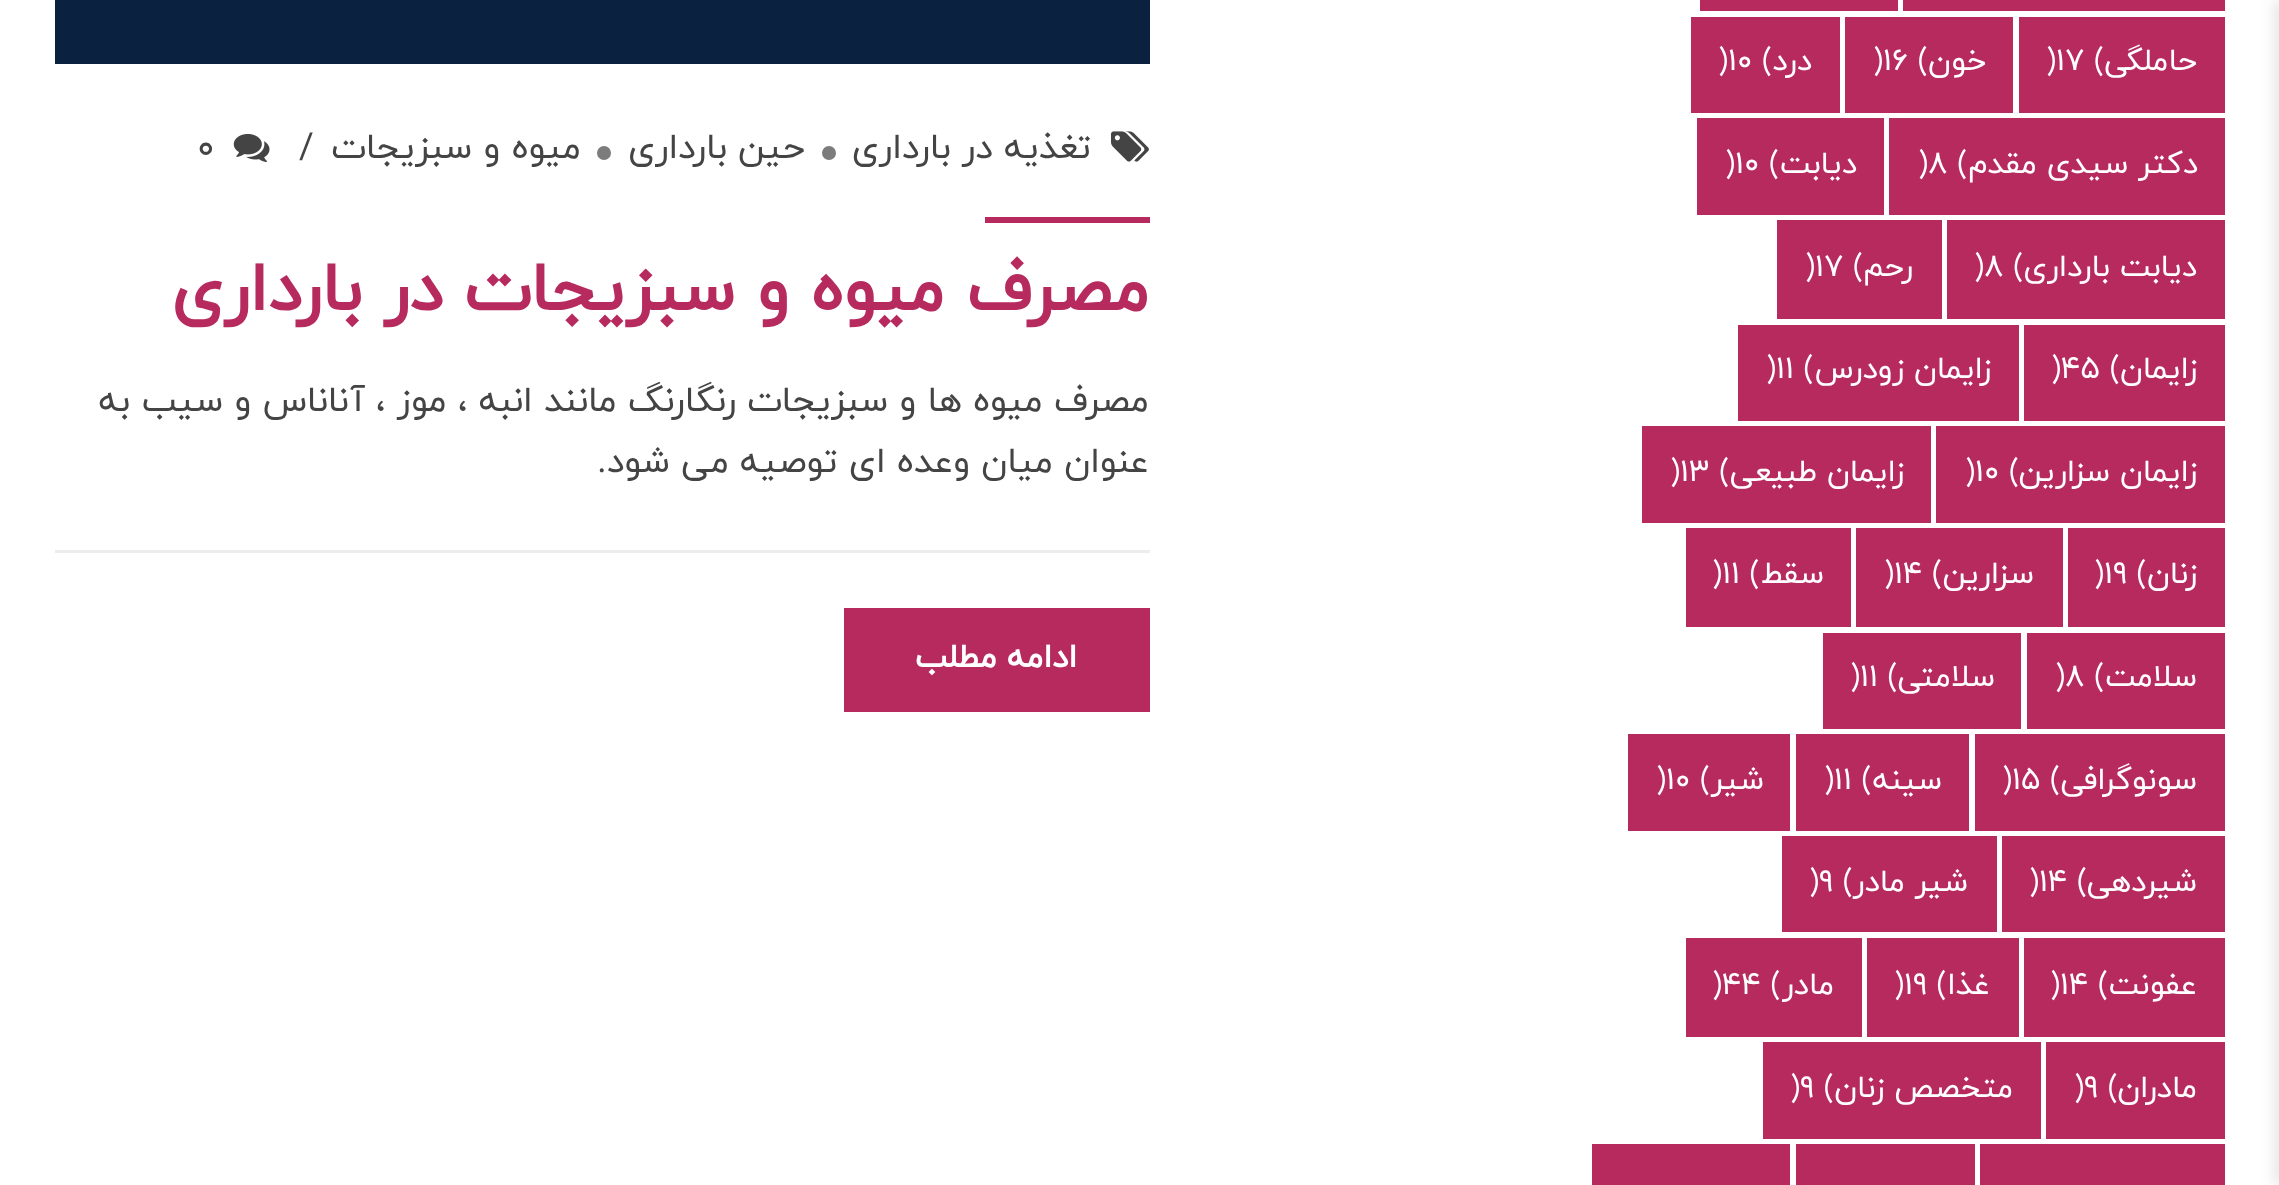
<!DOCTYPE html>
<meta charset="utf-8">
<style>body { margin: 0 } canvas { display: block }</style>
<canvas id="canvas" width="2279" height="1185"></canvas>
<script type="module">
  const canvas = document.getElementById("canvas");
  const ctx = canvas.getContext("2d");
  ctx.miterLimit = 4;
  ctx.fontKerning = "normal";
  async function loadImage(src) {
    const img = new Image();
    img.src = src;
    await img.decode();
    return img;
  }

  ctx.fillStyle = "#ffffff";
  ctx.fillRect(0, 0, 2279, 1185);
  ctx.fillStyle = "rgba(0, 0, 0, 0.1)";
  ctx.filter = "blur(7px)";
  ctx.beginPath();
  ctx.rect(2274, 0, 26, 1185);
  ctx.fill();
  ctx.filter = "none";
  ctx.fillStyle = "#b72a5e";
  ctx.fillRect(1903, 0, 322, 11);
  ctx.fillRect(1700, 0, 198, 11);
  ctx.fillRect(2019, 17, 206, 96);
  ctx.direction = "rtl";
  ctx.font = "31.25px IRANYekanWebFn";
  ctx.fillStyle = "#ffffff";
  ctx.fillText("حاملگی", 2197, 70);
  ctx.direction = "ltr";
  ctx.fillText(")17 (", 2046, 70);
  ctx.fillStyle = "#b72a5e";
  ctx.fillRect(1845, 17, 168, 96);
  ctx.direction = "rtl";
  ctx.fillStyle = "#ffffff";
  ctx.fillText("خون", 1986, 70);
  ctx.direction = "ltr";
  ctx.fillText(")16 (", 1873, 70);
  ctx.fillStyle = "#b72a5e";
  ctx.fillRect(1691, 17, 149, 96);
  ctx.direction = "rtl";
  ctx.fillStyle = "#ffffff";
  ctx.fillText("درد", 1812, 70);
  ctx.direction = "ltr";
  ctx.fillText(")10 (", 1718, 70);
  ctx.fillStyle = "#b72a5e";
  ctx.fillRect(1889, 118, 336, 97);
  ctx.direction = "rtl";
  ctx.fillStyle = "#ffffff";
  ctx.fillText("دکتر سیدی مقدم", 2198, 173);
  ctx.direction = "ltr";
  ctx.fillText(")8 (", 1918, 173);
  ctx.fillStyle = "#b72a5e";
  ctx.fillRect(1697, 118, 187, 97);
  ctx.direction = "rtl";
  ctx.fillStyle = "#ffffff";
  ctx.fillText("دیابت", 1857, 173);
  ctx.direction = "ltr";
  ctx.fillText(")10 (", 1725, 173);
  ctx.fillStyle = "#b72a5e";
  ctx.fillRect(1947, 220, 278, 99);
  ctx.direction = "rtl";
  ctx.fillStyle = "#ffffff";
  ctx.fillText("دیابت بارداری", 2197, 276);
  ctx.direction = "ltr";
  ctx.fillText(")8 (", 1974, 276);
  ctx.fillStyle = "#b72a5e";
  ctx.fillRect(1777, 220, 165, 99);
  ctx.direction = "rtl";
  ctx.fillStyle = "#ffffff";
  ctx.fillText("رحم", 1913, 276);
  ctx.direction = "ltr";
  ctx.fillText(")17 (", 1805, 276);
  ctx.fillStyle = "#b72a5e";
  ctx.fillRect(2024, 325, 201, 96);
  ctx.direction = "rtl";
  ctx.fillStyle = "#ffffff";
  ctx.fillText("زایمان", 2197, 378);
  ctx.direction = "ltr";
  ctx.fillText(")45 (", 2051, 378);
  ctx.fillStyle = "#b72a5e";
  ctx.fillRect(1738, 325, 281, 96);
  ctx.direction = "rtl";
  ctx.fillStyle = "#ffffff";
  ctx.fillText("زایمان زودرس", 1991, 378);
  ctx.direction = "ltr";
  ctx.fillText(")11 (", 1766, 378);
  ctx.fillStyle = "#b72a5e";
  ctx.fillRect(1936, 426, 289, 97);
  ctx.direction = "rtl";
  ctx.fillStyle = "#ffffff";
  ctx.fillText("زایمان سزارین", 2197, 481);
  ctx.direction = "ltr";
  ctx.fillText(")10 (", 1965, 481);
  ctx.fillStyle = "#b72a5e";
  ctx.fillRect(1642, 426, 289, 97);
  ctx.direction = "rtl";
  ctx.fillStyle = "#ffffff";
  ctx.fillText("زایمان طبیعی", 1904, 481);
  ctx.direction = "ltr";
  ctx.fillText(")13 (", 1670, 481);
  ctx.fillStyle = "#b72a5e";
  ctx.fillRect(2068, 528, 157, 99);
  ctx.direction = "rtl";
  ctx.fillStyle = "#ffffff";
  ctx.fillText("زنان", 2197, 583);
  ctx.direction = "ltr";
  ctx.fillText(")19 (", 2094, 583);
  ctx.fillStyle = "#b72a5e";
  ctx.fillRect(1856, 528, 207, 99);
  ctx.direction = "rtl";
  ctx.fillStyle = "#ffffff";
  ctx.fillText("سزارین", 2034, 583);
  ctx.direction = "ltr";
  ctx.fillText(")14 (", 1884, 583);
  ctx.fillStyle = "#b72a5e";
  ctx.fillRect(1686, 528, 165, 99);
  ctx.direction = "rtl";
  ctx.fillStyle = "#ffffff";
  ctx.fillText("سقط", 1824, 583);
  ctx.direction = "ltr";
  ctx.fillText(")11 (", 1712, 583);
  ctx.fillStyle = "#b72a5e";
  ctx.fillRect(2027, 633, 198, 96);
  ctx.direction = "rtl";
  ctx.fillStyle = "#ffffff";
  ctx.fillText("سلامت", 2197, 686);
  ctx.direction = "ltr";
  ctx.fillText(")8 (", 2055, 686);
  ctx.fillStyle = "#b72a5e";
  ctx.fillRect(1823, 633, 198, 96);
  ctx.direction = "rtl";
  ctx.fillStyle = "#ffffff";
  ctx.fillText("سلامتی", 1995, 686);
  ctx.direction = "ltr";
  ctx.fillText(")11 (", 1850, 686);
  ctx.fillStyle = "#b72a5e";
  ctx.fillRect(1975, 734, 250, 97);
  ctx.direction = "rtl";
  ctx.fillStyle = "#ffffff";
  ctx.fillText("سونوگرافی", 2197, 789);
  ctx.direction = "ltr";
  ctx.fillText(")15 (", 2002, 789);
  ctx.fillStyle = "#b72a5e";
  ctx.fillRect(1796, 734, 173, 97);
  ctx.direction = "rtl";
  ctx.fillStyle = "#ffffff";
  ctx.fillText("سینه", 1942, 789);
  ctx.direction = "ltr";
  ctx.fillText(")11 (", 1824, 789);
  ctx.fillStyle = "#b72a5e";
  ctx.fillRect(1628, 734, 162, 97);
  ctx.direction = "rtl";
  ctx.fillStyle = "#ffffff";
  ctx.fillText("شیر", 1764, 789);
  ctx.direction = "ltr";
  ctx.fillText(")10 (", 1656, 789);
  ctx.fillStyle = "#b72a5e";
  ctx.fillRect(2002, 836, 223, 96);
  ctx.direction = "rtl";
  ctx.fillStyle = "#ffffff";
  ctx.fillText("شیردهی", 2197, 891);
  ctx.direction = "ltr";
  ctx.fillText(")14 (", 2029, 891);
  ctx.fillStyle = "#b72a5e";
  ctx.fillRect(1782, 836, 215, 96);
  ctx.direction = "rtl";
  ctx.fillStyle = "#ffffff";
  ctx.fillText("شیر مادر", 1968, 891);
  ctx.direction = "ltr";
  ctx.fillText(")9 (", 1809, 891);
  ctx.fillStyle = "#b72a5e";
  ctx.fillRect(2024, 938, 201, 99);
  ctx.direction = "rtl";
  ctx.fillStyle = "#ffffff";
  ctx.fillText("عفونت", 2197, 994);
  ctx.direction = "ltr";
  ctx.fillText(")14 (", 2050, 994);
  ctx.fillStyle = "#b72a5e";
  ctx.fillRect(1867, 938, 152, 99);
  ctx.direction = "rtl";
  ctx.fillStyle = "#ffffff";
  ctx.fillText("غذا", 1990, 994);
  ctx.direction = "ltr";
  ctx.fillText(")19 (", 1894, 994);
  ctx.fillStyle = "#b72a5e";
  ctx.fillRect(1686, 938, 176, 99);
  ctx.direction = "rtl";
  ctx.fillStyle = "#ffffff";
  ctx.fillText("مادر", 1834, 994);
  ctx.direction = "ltr";
  ctx.fillText(")44 (", 1712, 994);
  ctx.fillStyle = "#b72a5e";
  ctx.fillRect(2046, 1042, 179, 97);
  ctx.direction = "rtl";
  ctx.fillStyle = "#ffffff";
  ctx.fillText("مادران", 2197, 1097);
  ctx.direction = "ltr";
  ctx.fillText(")9 (", 2074, 1097);
  ctx.fillStyle = "#b72a5e";
  ctx.fillRect(1763, 1042, 278, 97);
  ctx.direction = "rtl";
  ctx.fillStyle = "#ffffff";
  ctx.fillText("متخصص زنان", 2013, 1097);
  ctx.direction = "ltr";
  ctx.fillText(")9 (", 1790, 1097);
  ctx.fillStyle = "#b72a5e";
  ctx.fillRect(1980, 1144, 245, 41);
  ctx.fillRect(1796, 1144, 179, 41);
  ctx.fillRect(1592, 1144, 198, 41);
  ctx.fillStyle = "#0a2240";
  ctx.fillRect(55, 0, 1095, 64);
  ctx.drawImage(await loadImage("img1.png"), 1111, 131, 38, 31);
  ctx.direction = "rtl";
  ctx.font = "35.75px IRANYekanWebFn";
  ctx.fillStyle = "#444444";
  ctx.fillText("تغذیه در بارداری", 1091, 158);
  ctx.fillStyle = "#7c7c7c";
  ctx.beginPath();
  ctx.arc(829, 153, 7, 0, Math.PI * 2);
  ctx.fill();
  ctx.fillStyle = "#444444";
  ctx.fillText("حین بارداری", 805, 158);
  ctx.fillStyle = "#7c7c7c";
  ctx.beginPath();
  ctx.arc(604, 153, 7, 0, Math.PI * 2);
  ctx.fill();
  ctx.fillStyle = "#444444";
  ctx.fillText("میوه و سبزیجات", 581, 158);
  ctx.direction = "ltr";
  ctx.fillText("/", 299, 158);
  ctx.drawImage(await loadImage("img2.png"), 233, 134, 37, 28);
  ctx.fillText("0", 197, 158);
  ctx.fillStyle = "#b72a5e";
  ctx.fillRect(985, 217, 165, 6);
  ctx.direction = "rtl";
  ctx.font = "bold 68.75px IRANYekanWebFn";
  ctx.fillText("مصرف میوه و سبزیجات در بارداری", 1149, 310);
  ctx.font = "35.75px IRANYekanWebFn";
  ctx.fillStyle = "#444444";
  ctx.fillText("مصرف میوه ها و سبزیجات رنگارنگ مانند انبه ، موز ، آناناس و سیب به", 1149, 411);
  ctx.fillText("عنوان میان وعده ای توصیه می شود.", 1149, 472);
  ctx.fillStyle = "#ededed";
  ctx.fillRect(55, 550, 1095, 3);
  ctx.fillStyle = "#b72a5e";
  ctx.fillRect(844, 608, 306, 104);
  ctx.font = "bold 33px IRANYekanWebFn";
  ctx.fillStyle = "#ffffff";
  ctx.fillText("ادامه مطلب", 1077, 667);
</script>
